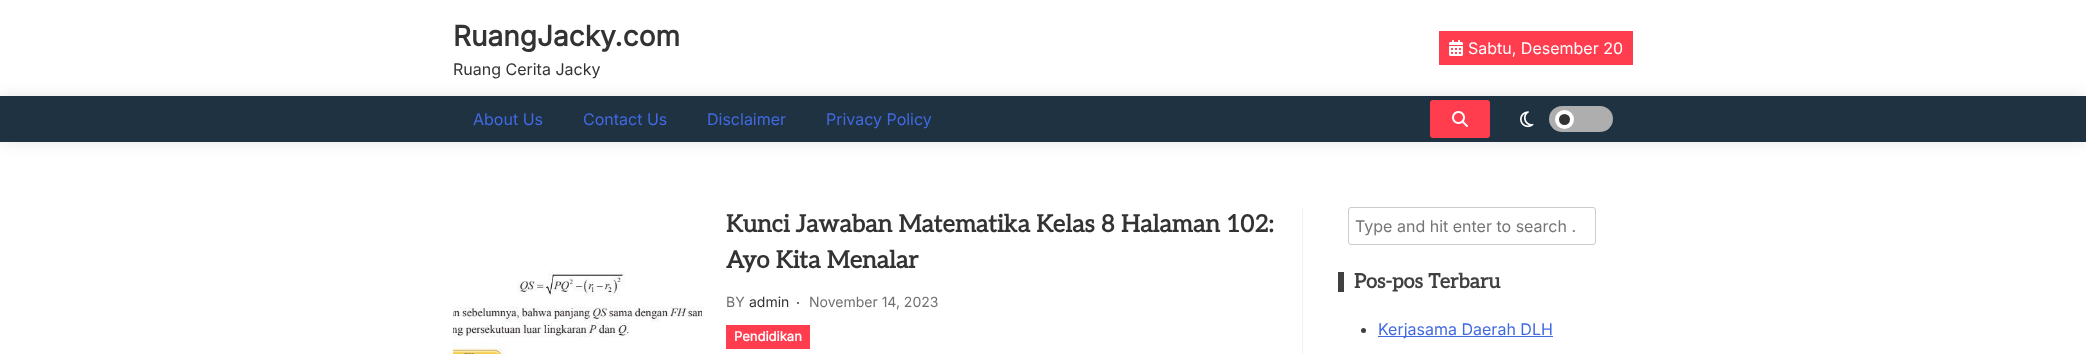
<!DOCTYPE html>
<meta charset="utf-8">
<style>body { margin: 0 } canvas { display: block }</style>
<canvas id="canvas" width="2086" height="354"></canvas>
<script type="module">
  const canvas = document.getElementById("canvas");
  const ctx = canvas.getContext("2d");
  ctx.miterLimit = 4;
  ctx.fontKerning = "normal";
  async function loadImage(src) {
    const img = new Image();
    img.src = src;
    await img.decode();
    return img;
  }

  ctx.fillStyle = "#ffffff";
  ctx.fillRect(0, 0, 2086, 354);
  ctx.font = "bold 28px Inter";
  ctx.fillStyle = "#333333";
  ctx.fillText("RuangJacky.com", 453, 46);
  ctx.fillStyle = "rgba(0, 0, 0, 0.1)";
  ctx.filter = "blur(7.5px)";
  ctx.beginPath();
  ctx.rect(0, 96, 2086, 46);
  ctx.fill();
  ctx.filter = "none";
  ctx.font = "16px Inter";
  ctx.fillStyle = "#333333";
  ctx.fillText("Ruang Cerita Jacky", 453, 75);
  ctx.fillStyle = "#ff3d4f";
  ctx.fillRect(1439, 31, 194, 34);
  ctx.drawImage(await loadImage("img1.png"), 1449, 40, 14, 16);
  ctx.fillStyle = "#ffffff";
  ctx.fillText("Sabtu, Desember 20", 1468, 54);
  ctx.fillStyle = "#1f3241";
  ctx.fillRect(0, 96, 2086, 46);
  ctx.fillStyle = "#4169e1";
  ctx.fillText("About Us", 473, 125);
  ctx.fillText("Contact Us", 583, 125);
  ctx.fillText("Disclaimer", 707, 125);
  ctx.fillText("Privacy Policy", 826, 125);
  ctx.fillStyle = "#ff3d4f";
  ctx.beginPath();
  ctx.roundRect(1430, 100, 60, 38, 3);
  ctx.fill();
  ctx.drawImage(await loadImage("img2.png"), 1452, 111, 16, 16);
  ctx.drawImage(await loadImage("img3.png"), 1520, 111, 14, 17);
  ctx.fillStyle = "#aeaeae";
  ctx.beginPath();
  ctx.roundRect(1549, 106, 64, 26, 13);
  ctx.fill();
  ctx.fillStyle = "#333333";
  ctx.beginPath();
  ctx.arc(1564.5, 119.5, 7.5, 0, Math.PI * 2);
  ctx.fill();
  ctx.strokeStyle = "#ffffff";
  ctx.lineWidth = 4;
  ctx.stroke();
  ctx.fillStyle = "#f1f1f1";
  ctx.fillRect(1302, 207, 1, 147);
  ctx.drawImage(await loadImage("img4.png"), 453, 271, 249, 83);
  ctx.font = "bold 24px Aleo";
  ctx.fillStyle = "#333333";
  ctx.fillText("Kunci Jawaban Matematika Kelas 8 Halaman 102:", 726, 232);
  ctx.fillText("Ayo Kita Menalar", 726, 268);
  ctx.font = "14px Inter";
  ctx.fillStyle = "#726f6f";
  ctx.fillText("BY", 726, 307);
  ctx.fillStyle = "#333333";
  ctx.fillText("admin", 749, 307);
  ctx.fillStyle = "#404040";
  ctx.beginPath();
  ctx.arc(798, 303, 1, 0, Math.PI * 2);
  ctx.fill();
  ctx.fillStyle = "#726f6f";
  ctx.fillText("November 14, 2023", 809, 307);
  ctx.fillStyle = "#ff3d4f";
  ctx.fillRect(726, 325, 84, 24);
  ctx.font = "bold 13px Inter";
  ctx.fillStyle = "#ffffff";
  ctx.fillText("Pendidikan", 734, 341);
  ctx.beginPath();
  ctx.roundRect(1348.5, 207.5, 247, 37, 2.5);
  ctx.strokeStyle = "#cccccc";
  ctx.lineWidth = 1;
  ctx.stroke();
  ctx.font = "16px Inter";
  ctx.fillStyle = "#757575";
  ctx.fillText("Type and hit enter to search .", 1355, 232);
  ctx.fillStyle = "#404040";
  ctx.fillRect(1338, 272, 6, 20);
  ctx.font = "bold 20px Aleo";
  ctx.fillText("Pos-pos Terbaru", 1354, 288);
  ctx.beginPath();
  ctx.arc(1363.5, 330.5, 2.5, 0, Math.PI * 2);
  ctx.fill();
  ctx.fillStyle = "#4169e1";
  ctx.fillRect(1378, 336, 175, 1);
  ctx.font = "16px Inter";
  ctx.fillText("Kerjasama Daerah DLH", 1378, 335);
</script>
